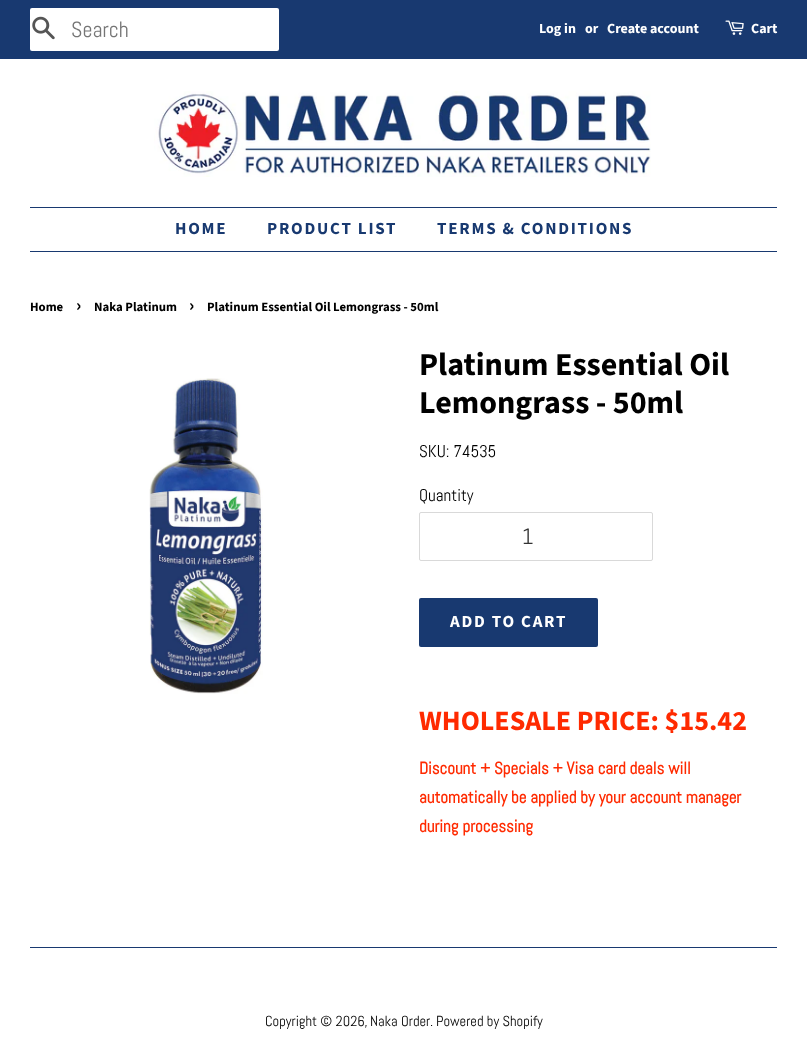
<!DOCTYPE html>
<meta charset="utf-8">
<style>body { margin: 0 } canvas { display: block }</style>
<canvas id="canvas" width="807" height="1056"></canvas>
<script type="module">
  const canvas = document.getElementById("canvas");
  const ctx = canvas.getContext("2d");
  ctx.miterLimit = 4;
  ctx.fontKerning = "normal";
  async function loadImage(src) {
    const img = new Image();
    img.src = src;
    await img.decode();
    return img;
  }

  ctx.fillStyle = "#ffffff";
  ctx.fillRect(0, 0, 807, 1056);
  ctx.fillStyle = "#183970";
  ctx.fillRect(0, 0, 807, 59);
  ctx.fillStyle = "#ffffff";
  ctx.beginPath();
  ctx.roundRect(30, 8, 249, 43, 2);
  ctx.fill();
  ctx.drawImage(await loadImage("img1.png"), 32, 16, 23, 24);
  ctx.font = "22px Abel";
  ctx.fillStyle = "#757575";
  ctx.fillText("Search", 71, 37);
  ctx.font = "bold 14px Source Sans Pro";
  ctx.fillStyle = "#ffffff";
  ctx.fillText("Log in", 539, 33);
  ctx.fillText("or", 585, 33);
  ctx.fillText("Create account", 607, 33);
  ctx.drawImage(await loadImage("img2.png"), 725, 20, 19, 15);
  ctx.fillText("Cart", 751, 33);
  ctx.drawImage(await loadImage("img3.png"), 154, 91, 497, 86);
  ctx.fillStyle = "#183970";
  ctx.fillRect(30, 207, 747, 1);
  ctx.fillRect(30, 251, 747, 1);
  ctx.letterSpacing = "1.75px";
  ctx.font = "bold 17px Source Sans Pro";
  ctx.fillText("HOME", 175, 234);
  ctx.fillText("PRODUCT LIST", 267, 234);
  ctx.fillText("TERMS & CONDITIONS", 437, 234);
  ctx.letterSpacing = "0px";
  ctx.font = "bold 12.75px Source Sans Pro";
  ctx.fillStyle = "#000000";
  ctx.fillText("Home", 30, 311);
  ctx.font = "bold 18px Source Sans Pro";
  ctx.fillText("›", 76, 311);
  ctx.font = "bold 12.75px Source Sans Pro";
  ctx.fillText("Naka Platinum", 94, 311);
  ctx.font = "bold 18px Source Sans Pro";
  ctx.fillText("›", 189, 311);
  ctx.font = "bold 12.75px Source Sans Pro";
  ctx.fillText("Platinum Essential Oil Lemongrass - 50ml", 207, 311);
  ctx.drawImage(await loadImage("img4.png"), 149, 378, 114, 316);
  ctx.font = "bold 32px Source Sans Pro";
  ctx.fillText("Platinum Essential Oil", 419, 375);
  ctx.fillText("Lemongrass - 50ml", 419, 413);
  ctx.font = "17px Abel";
  ctx.fillText("SKU: 74535", 419, 457);
  ctx.fillText("Quantity", 419, 501);
  ctx.beginPath();
  ctx.roundRect(419.5, 512.5, 233, 48, 1.5);
  ctx.strokeStyle = "#d9d9d9";
  ctx.stroke();
  ctx.font = "22px Abel";
  ctx.fillStyle = "#333333";
  ctx.fillText("1", 522, 544);
  ctx.fillStyle = "#183970";
  ctx.beginPath();
  ctx.roundRect(419, 598, 179, 49, 2);
  ctx.fill();
  ctx.letterSpacing = "1.75px";
  ctx.font = "bold 17px Source Sans Pro";
  ctx.fillStyle = "#ffffff";
  ctx.fillText("ADD TO CART", 450, 627);
  ctx.letterSpacing = "0px";
  ctx.font = "bold 28px Source Sans Pro";
  ctx.fillStyle = "#ff2a00";
  ctx.fillText("WHOLESALE PRICE: $15.42", 419, 730);
  ctx.font = "bold 17px Abel";
  ctx.fillText("Discount + Specials + Visa card deals will", 419, 774);
  ctx.fillText("automatically be applied by your account manager", 419, 803);
  ctx.fillText("during processing", 419, 832);
  ctx.fillStyle = "#183970";
  ctx.fillRect(30, 947, 747, 1);
  ctx.font = "14.5px Abel";
  ctx.fillStyle = "#000000";
  ctx.fillText("Copyright © 2026,", 265, 1026);
  ctx.fillText("Naka Order", 370, 1026);
  ctx.fillText(".", 430, 1026);
  ctx.fillText("Powered by Shopify", 436, 1026);
</script>
